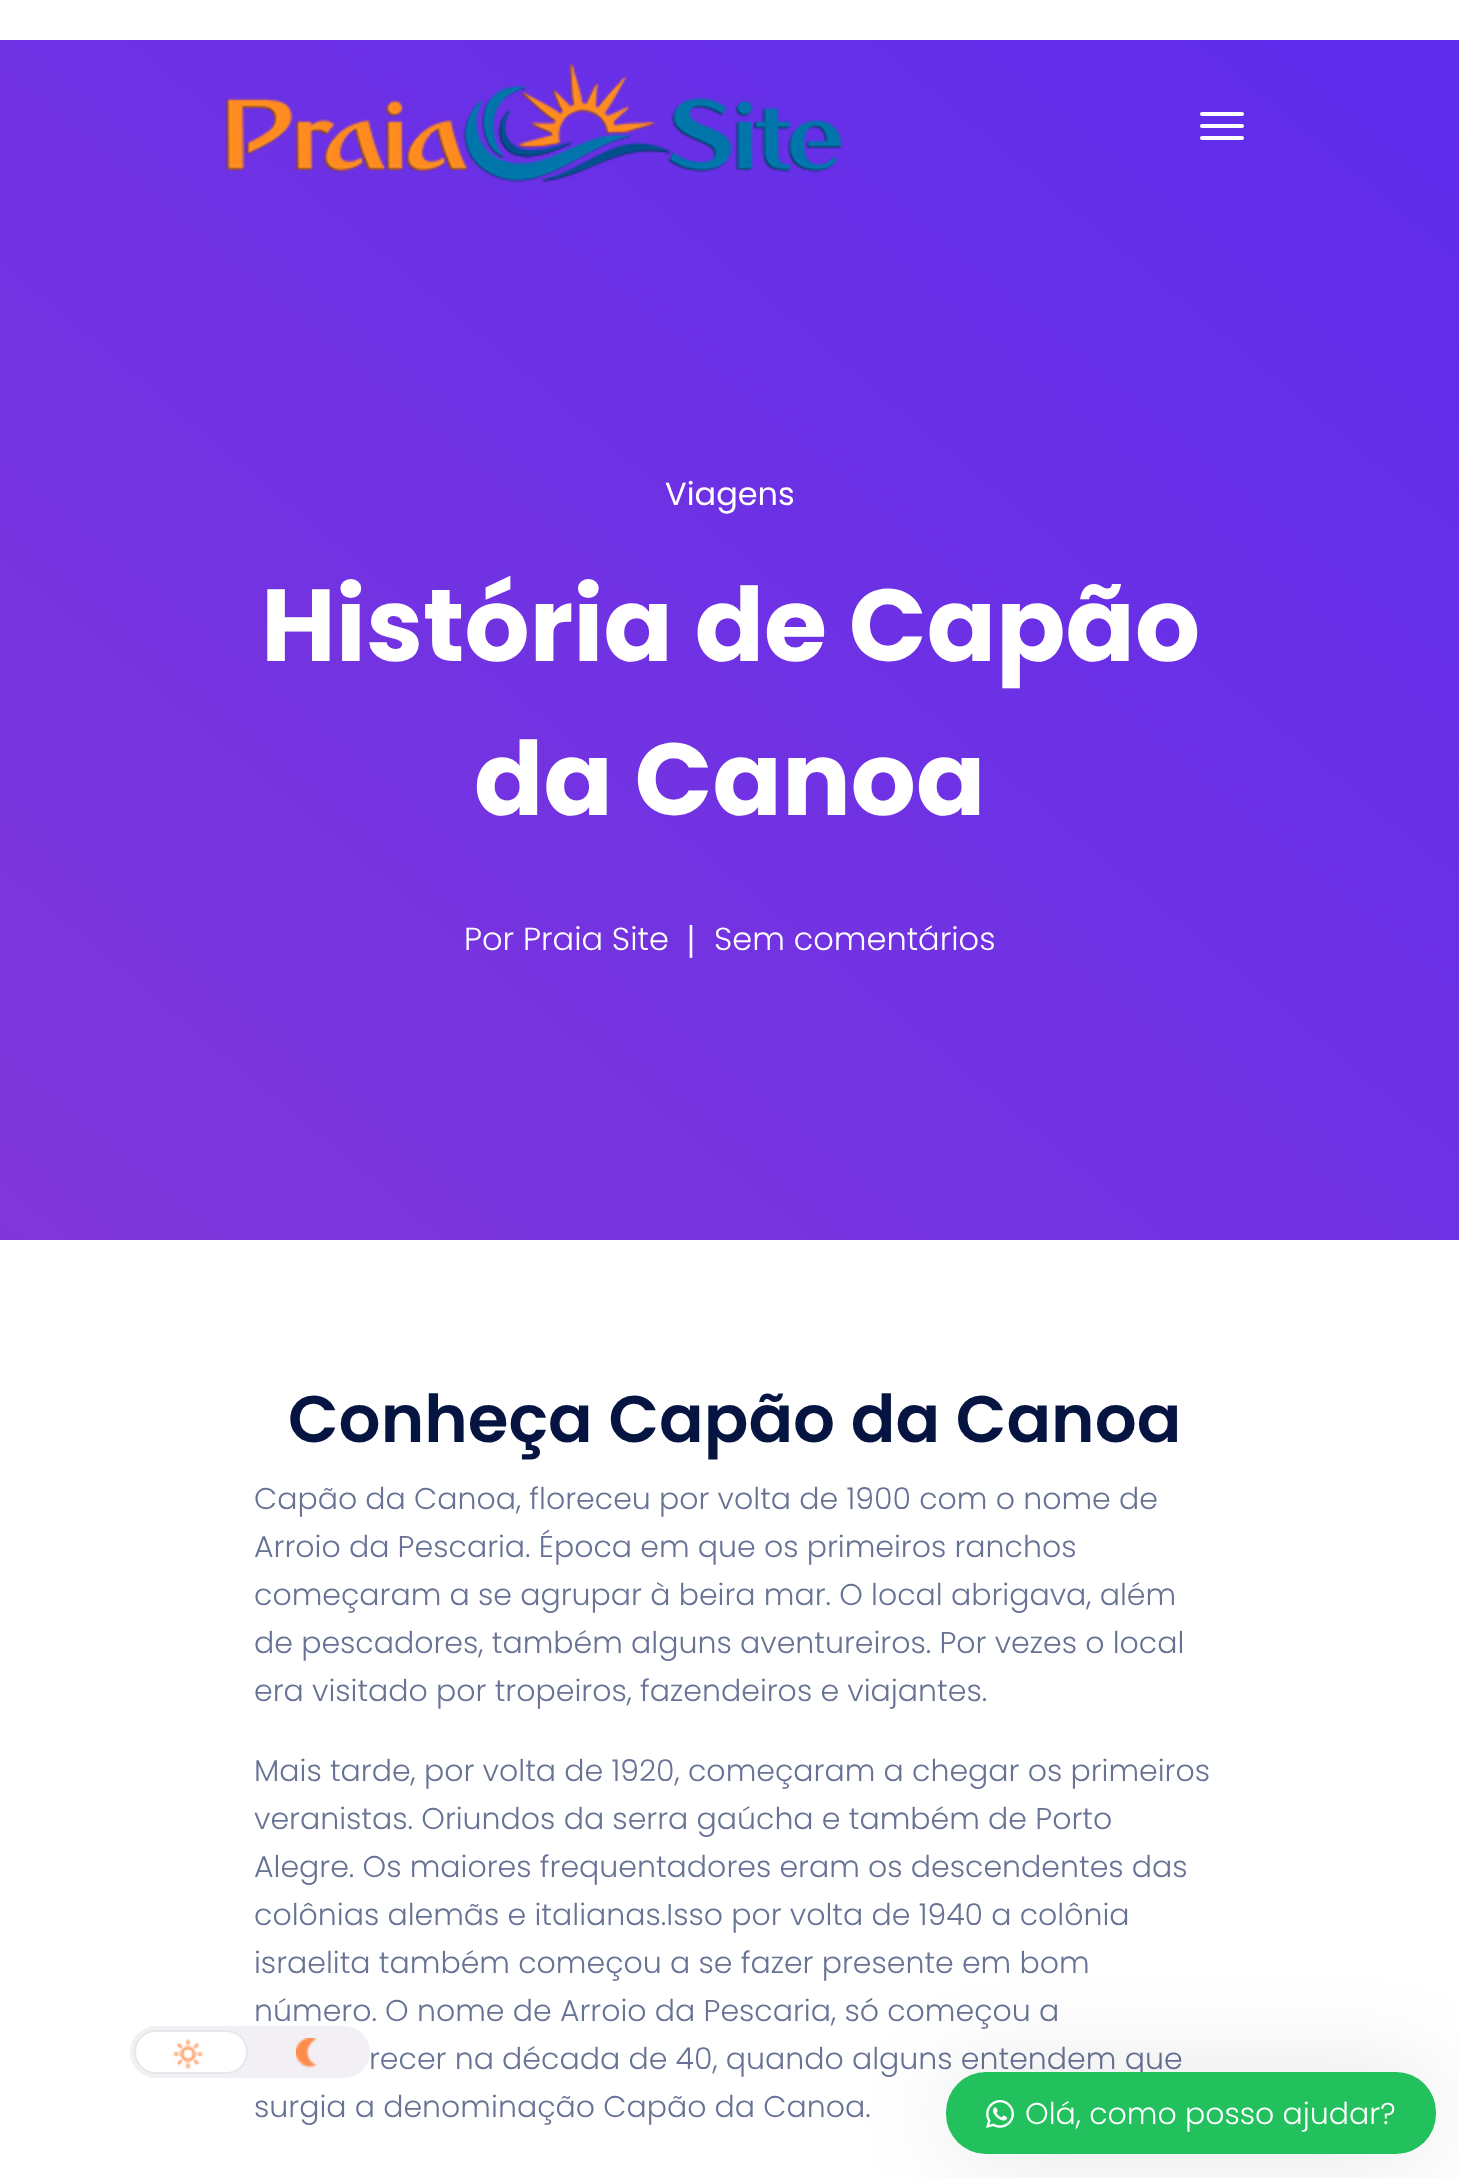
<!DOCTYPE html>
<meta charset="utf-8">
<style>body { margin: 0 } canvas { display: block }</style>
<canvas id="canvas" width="1459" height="2178"></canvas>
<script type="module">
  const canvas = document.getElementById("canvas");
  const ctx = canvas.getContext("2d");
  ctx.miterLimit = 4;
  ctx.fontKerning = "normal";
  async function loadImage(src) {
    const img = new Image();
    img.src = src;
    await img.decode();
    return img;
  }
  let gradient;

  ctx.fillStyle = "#ffffff";
  ctx.fillRect(0, 0, 1459, 2178);
  gradient = ctx.createLinearGradient(1327, -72, 133, 1352);
  gradient.addColorStop(0, "#5e2ced");
  gradient.addColorStop(1, "#8037da");
  ctx.fillStyle = gradient;
  ctx.fillRect(0, 40, 1459, 1200);
  ctx.drawImage(await loadImage("img1.png"), 225, 62, 618, 121);
  ctx.fillStyle = "#ffffff";
  ctx.beginPath();
  ctx.roundRect(1200, 112, 44, 4, 2);
  ctx.fill();
  ctx.beginPath();
  ctx.roundRect(1200, 124, 44, 4, 2);
  ctx.fill();
  ctx.beginPath();
  ctx.roundRect(1200, 136, 44, 4, 2);
  ctx.fill();
  ctx.font = "32px Poppins";
  ctx.fillText("Viagens", 665, 505);
  ctx.font = "bold 102.25px Poppins";
  ctx.fillText("História de Capão", 261, 661);
  ctx.fillText("da Canoa", 474, 815);
  ctx.font = "300 32px Poppins";
  ctx.fillText("Por Praia Site", 464, 950);
  ctx.font = "bold 36px Liberation Serif";
  ctx.fillText("|", 687, 950);
  ctx.font = "300 32px Poppins";
  ctx.fillText("Sem comentários", 714, 950);
  ctx.font = "300 30px Poppins";
  ctx.fillStyle = "#677294";
  ctx.fillText("número. O nome de Arroio da Pescaria, só começou a", 254, 2021);
  ctx.fillStyle = "#f2f0f4";
  ctx.beginPath();
  ctx.roundRect(130, 2026, 240, 52, 26);
  ctx.fill();
  ctx.fillStyle = "#ffffff";
  ctx.beginPath();
  ctx.roundRect(135, 2031, 112, 42, 21);
  ctx.fill();
  ctx.strokeStyle = "#e7e7e7";
  ctx.lineWidth = 2;
  ctx.stroke();
  ctx.drawImage(await loadImage("img2.png"), 172, 2038, 32, 32);
  ctx.drawImage(await loadImage("img3.png"), 296, 2038, 21, 30);
  ctx.font = "600 65.9px Poppins";
  ctx.fillStyle = "#051441";
  ctx.fillText("Conheça Capão da Canoa", 288, 1442);
  ctx.font = "300 30px Poppins";
  ctx.fillStyle = "#677294";
  ctx.fillText("Capão da Canoa, floreceu por volta de 1900 com o nome de", 254, 1509);
  ctx.fillText("Arroio da Pescaria. Época em que os primeiros ranchos", 254, 1557);
  ctx.fillText("começaram a se agrupar à beira mar. O local abrigava, além", 254, 1605);
  ctx.fillText("de pescadores, também alguns aventureiros. Por vezes o local", 254, 1653);
  ctx.fillText("era visitado por tropeiros, fazendeiros e viajantes.", 254, 1701);
  ctx.fillText("Mais tarde, por volta de 1920, começaram a chegar os primeiros", 254, 1781);
  ctx.fillText("veranistas. Oriundos da serra gaúcha e também de Porto", 254, 1829);
  ctx.fillText("Alegre. Os maiores frequentadores eram os descendentes das", 254, 1877);
  ctx.fillText("colônias alemãs e italianas.Isso por volta de 1940 a colônia", 254, 1925);
  ctx.fillText("israelita também começou a se fazer presente em bom", 254, 1973);
  ctx.fillText("recer na década de 40, quando alguns entendem que", 369, 2069);
  ctx.fillText("surgia a denominação Capão da Canoa.", 254, 2117);
  ctx.fillStyle = "rgba(0, 0, 0, 0.1)";
  ctx.filter = "blur(50px)";
  ctx.beginPath();
  ctx.roundRect(946, 2072, 490, 82, 40);
  ctx.fill();
  ctx.filter = "none";
  ctx.fillStyle = "#22c15e";
  ctx.beginPath();
  ctx.roundRect(946, 2072, 490, 82, 40);
  ctx.fill();
  ctx.drawImage(await loadImage("img4.png"), 986, 2100, 28, 28);
  ctx.fillStyle = "#ffffff";
  ctx.fillText("Olá, como posso ajudar?", 1025, 2124);
</script>
